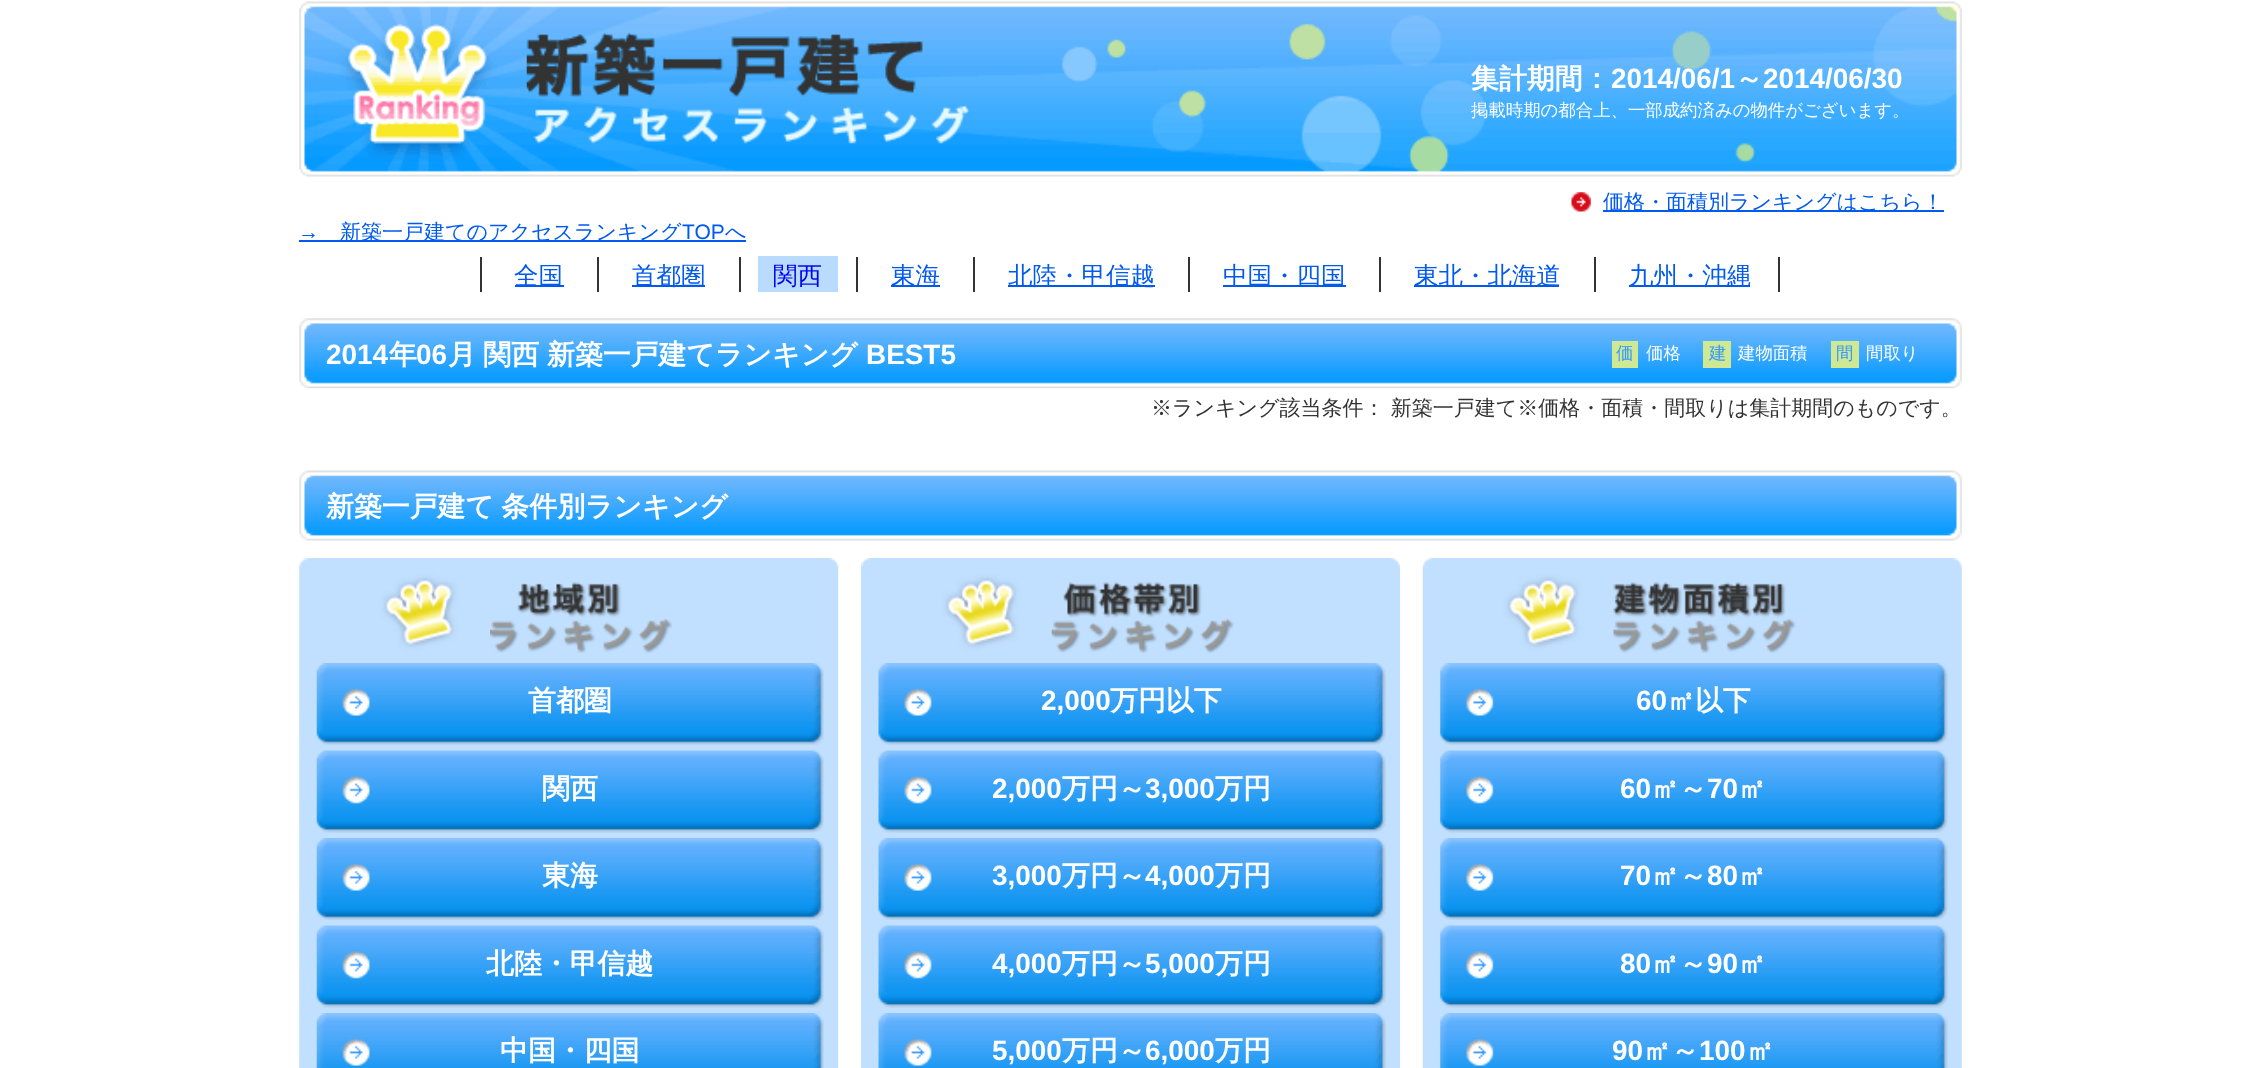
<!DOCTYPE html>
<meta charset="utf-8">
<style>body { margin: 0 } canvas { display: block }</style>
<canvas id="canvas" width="2258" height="1068"></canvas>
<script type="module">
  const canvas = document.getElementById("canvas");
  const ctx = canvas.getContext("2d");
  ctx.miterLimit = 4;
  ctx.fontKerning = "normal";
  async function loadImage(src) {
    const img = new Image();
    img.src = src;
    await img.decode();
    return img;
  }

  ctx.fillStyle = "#ffffff";
  ctx.fillRect(0, 0, 2258, 1068);
  ctx.drawImage(await loadImage("img1.png"), 299, 1, 1663, 176);
  ctx.drawImage(await loadImage("img2.png"), 526, 33, 444, 111);
  ctx.font = "bold 27.9px WenQuanYi Zen Hei";
  ctx.fillText("集計期間：", 1471, 88);
  ctx.font = "bold 27.9px Liberation Sans";
  ctx.fillText("2014/06/1", 1611, 88);
  ctx.font = "bold 27.9px WenQuanYi Zen Hei";
  ctx.fillText("～", 1735, 88);
  ctx.font = "bold 27.9px Liberation Sans";
  ctx.fillText("2014/06/30", 1763, 88);
  ctx.font = "500 17.4px WenQuanYi Zen Hei";
  ctx.fillText("掲載時期の都合上、一部成約済みの物件がございます。", 1471, 116);
  ctx.drawImage(await loadImage("img3.png"), 1571, 192, 20, 20);
  ctx.fillStyle = "#005aee";
  ctx.fillRect(1603, 210, 341, 2);
  ctx.font = "500 21px WenQuanYi Zen Hei";
  ctx.fillText("価格・面積別ランキングはこちら！", 1603, 209);
  ctx.font = "21px Liberation Sans";
  ctx.fillText("→", 298, 239);
  ctx.fillRect(299, 240, 447, 2);
  ctx.font = "500 21px WenQuanYi Zen Hei";
  ctx.fillText("新築一戸建てのアクセスランキング", 340, 239);
  ctx.font = "21px Liberation Sans";
  ctx.fillText("TOP", 682, 239);
  ctx.font = "500 21px WenQuanYi Zen Hei";
  ctx.fillText("へ", 725, 239);
  ctx.fillRect(515, 285, 49, 2);
  ctx.font = "500 24.5px WenQuanYi Zen Hei";
  ctx.fillText("全国", 514, 284);
  ctx.fillStyle = "#333333";
  ctx.fillRect(480, 257, 2, 35);
  ctx.fillStyle = "#005aee";
  ctx.fillRect(632, 285, 73, 2);
  ctx.fillText("首都圏", 632, 284);
  ctx.fillStyle = "#333333";
  ctx.fillRect(597, 257, 2, 35);
  ctx.fillStyle = "#b8dbff";
  ctx.fillRect(758, 256, 80, 36);
  ctx.fillStyle = "#0000ee";
  ctx.fillText("関西", 773, 284);
  ctx.fillStyle = "#333333";
  ctx.fillRect(739, 257, 2, 35);
  ctx.fillStyle = "#005aee";
  ctx.fillRect(891, 285, 49, 2);
  ctx.fillText("東海", 891, 284);
  ctx.fillStyle = "#333333";
  ctx.fillRect(856, 257, 2, 35);
  ctx.fillStyle = "#005aee";
  ctx.fillRect(1008, 285, 147, 2);
  ctx.fillText("北陸・甲信越", 1008, 284);
  ctx.fillStyle = "#333333";
  ctx.fillRect(973, 257, 2, 35);
  ctx.fillStyle = "#005aee";
  ctx.fillRect(1223, 285, 123, 2);
  ctx.fillText("中国・四国", 1223, 284);
  ctx.fillStyle = "#333333";
  ctx.fillRect(1188, 257, 2, 35);
  ctx.fillStyle = "#005aee";
  ctx.fillRect(1414, 285, 145, 2);
  ctx.fillText("東北・北海道", 1414, 284);
  ctx.fillStyle = "#333333";
  ctx.fillRect(1379, 257, 2, 35);
  ctx.fillStyle = "#005aee";
  ctx.fillRect(1629, 285, 121, 2);
  ctx.fillText("九州・沖縄", 1629, 284);
  ctx.fillStyle = "#333333";
  ctx.fillRect(1778, 257, 2, 35);
  ctx.fillRect(1594, 257, 2, 35);
  ctx.drawImage(await loadImage("img4.png"), 299, 318, 1663, 71);
  ctx.font = "bold 27.9px Liberation Sans";
  ctx.fillStyle = "#ffffff";
  ctx.fillText("2014", 326, 364);
  ctx.font = "bold 27.9px WenQuanYi Zen Hei";
  ctx.fillText("年", 389, 364);
  ctx.font = "bold 27.9px Liberation Sans";
  ctx.fillText("06", 416, 364);
  ctx.wordSpacing = "-1px";
  ctx.font = "bold 27.9px WenQuanYi Zen Hei";
  ctx.fillText("月 関西", 448, 364);
  ctx.wordSpacing = "0px";
  ctx.fillText("新築一戸建てランキング", 547, 364);
  ctx.font = "bold 27.9px Liberation Sans";
  ctx.fillText("BEST5", 866, 364);
  ctx.fillStyle = "#cfe893";
  ctx.fillRect(1612, 341, 26, 27);
  ctx.font = "500 17.4px WenQuanYi Zen Hei";
  ctx.fillStyle = "#3399ff";
  ctx.fillText("価", 1616, 359);
  ctx.fillStyle = "#ffffff";
  ctx.fillText("価格", 1646, 359);
  ctx.fillStyle = "#cfe893";
  ctx.fillRect(1703, 341, 28, 27);
  ctx.fillStyle = "#3399ff";
  ctx.fillText("建", 1709, 359);
  ctx.fillStyle = "#ffffff";
  ctx.fillText("建物面積", 1738, 359);
  ctx.fillStyle = "#cfe893";
  ctx.fillRect(1831, 341, 28, 27);
  ctx.fillStyle = "#3399ff";
  ctx.fillText("間", 1836, 359);
  ctx.fillStyle = "#ffffff";
  ctx.fillText("間取り", 1866, 359);
  ctx.font = "500 21px WenQuanYi Zen Hei";
  ctx.fillStyle = "#333333";
  ctx.fillText("※ランキング該当条件： 新築一戸建て※価格・面積・間取りは集計期間のものです。", 1151, 415);
  ctx.drawImage(await loadImage("img5.png"), 299, 470, 1663, 71);
  ctx.wordSpacing = "-1px";
  ctx.font = "bold 27.9px WenQuanYi Zen Hei";
  ctx.fillStyle = "#ffffff";
  ctx.fillText("新築一戸建て 条件別ランキング", 326, 516);
  ctx.drawImage(await loadImage("img6.png"), 299, 558, 540, 510);
  ctx.drawImage(await loadImage("img7.png"), 490, 582, 182, 71);
  ctx.drawImage(await loadImage("img8.png"), 316, 663, 508, 82);
  ctx.wordSpacing = "0px";
  ctx.fillText("首都圏", 528, 710);
  ctx.drawImage(await loadImage("img9.png"), 316, 750, 508, 83);
  ctx.fillText("関西", 542, 798);
  ctx.drawImage(await loadImage("img8.png"), 316, 838, 508, 82);
  ctx.fillText("東海", 542, 885);
  ctx.drawImage(await loadImage("img9.png"), 316, 925, 508, 83);
  ctx.fillText("北陸・甲信越", 486, 973);
  ctx.drawImage(await loadImage("img10.png"), 316, 1013, 508, 55);
  ctx.fillText("中国・四国", 500, 1060);
  ctx.drawImage(await loadImage("img11.png"), 861, 558, 539, 510);
  ctx.drawImage(await loadImage("img12.png"), 1051, 582, 183, 71);
  ctx.drawImage(await loadImage("img13.png"), 878, 663, 508, 82);
  ctx.font = "bold 27.9px Liberation Sans";
  ctx.fillText("2,000", 1041, 710);
  ctx.font = "bold 27.9px WenQuanYi Zen Hei";
  ctx.fillText("万円以下", 1110, 710);
  ctx.drawImage(await loadImage("img14.png"), 878, 750, 508, 83);
  ctx.font = "bold 27.9px Liberation Sans";
  ctx.fillText("2,000", 992, 798);
  ctx.font = "bold 27.9px WenQuanYi Zen Hei";
  ctx.fillText("万円～", 1062, 798);
  ctx.font = "bold 27.9px Liberation Sans";
  ctx.fillText("3,000", 1145, 798);
  ctx.font = "bold 27.9px WenQuanYi Zen Hei";
  ctx.fillText("万円", 1215, 798);
  ctx.drawImage(await loadImage("img13.png"), 878, 838, 508, 82);
  ctx.font = "bold 27.9px Liberation Sans";
  ctx.fillText("3,000", 992, 885);
  ctx.font = "bold 27.9px WenQuanYi Zen Hei";
  ctx.fillText("万円～", 1062, 885);
  ctx.font = "bold 27.9px Liberation Sans";
  ctx.fillText("4,000", 1145, 885);
  ctx.font = "bold 27.9px WenQuanYi Zen Hei";
  ctx.fillText("万円", 1215, 885);
  ctx.drawImage(await loadImage("img14.png"), 878, 925, 508, 83);
  ctx.font = "bold 27.9px Liberation Sans";
  ctx.fillText("4,000", 992, 973);
  ctx.font = "bold 27.9px WenQuanYi Zen Hei";
  ctx.fillText("万円～", 1062, 973);
  ctx.font = "bold 27.9px Liberation Sans";
  ctx.fillText("5,000", 1145, 973);
  ctx.font = "bold 27.9px WenQuanYi Zen Hei";
  ctx.fillText("万円", 1215, 973);
  ctx.drawImage(await loadImage("img15.png"), 878, 1013, 508, 55);
  ctx.font = "bold 27.9px Liberation Sans";
  ctx.fillText("5,000", 992, 1060);
  ctx.font = "bold 27.9px WenQuanYi Zen Hei";
  ctx.fillText("万円～", 1062, 1060);
  ctx.font = "bold 27.9px Liberation Sans";
  ctx.fillText("6,000", 1145, 1060);
  ctx.font = "bold 27.9px WenQuanYi Zen Hei";
  ctx.fillText("万円", 1215, 1060);
  ctx.drawImage(await loadImage("img16.png"), 1422, 558, 540, 510);
  ctx.drawImage(await loadImage("img17.png"), 1613, 582, 183, 71);
  ctx.drawImage(await loadImage("img18.png"), 1440, 663, 508, 82);
  ctx.font = "bold 27.9px Liberation Sans";
  ctx.fillText("60", 1636, 710);
  ctx.font = "bold 27.9px WenQuanYi Zen Hei";
  ctx.fillText("㎡以下", 1667, 710);
  ctx.drawImage(await loadImage("img19.png"), 1440, 750, 508, 83);
  ctx.font = "bold 27.9px Liberation Sans";
  ctx.fillText("60", 1620, 798);
  ctx.font = "bold 27.9px WenQuanYi Zen Hei";
  ctx.fillText("㎡～", 1651, 798);
  ctx.font = "bold 27.9px Liberation Sans";
  ctx.fillText("70", 1707, 798);
  ctx.font = "bold 27.9px WenQuanYi Zen Hei";
  ctx.fillText("㎡", 1738, 798);
  ctx.drawImage(await loadImage("img18.png"), 1440, 838, 508, 82);
  ctx.font = "bold 27.9px Liberation Sans";
  ctx.fillText("70", 1620, 885);
  ctx.font = "bold 27.9px WenQuanYi Zen Hei";
  ctx.fillText("㎡～", 1651, 885);
  ctx.font = "bold 27.9px Liberation Sans";
  ctx.fillText("80", 1707, 885);
  ctx.font = "bold 27.9px WenQuanYi Zen Hei";
  ctx.fillText("㎡", 1738, 885);
  ctx.drawImage(await loadImage("img19.png"), 1440, 925, 508, 83);
  ctx.font = "bold 27.9px Liberation Sans";
  ctx.fillText("80", 1620, 973);
  ctx.font = "bold 27.9px WenQuanYi Zen Hei";
  ctx.fillText("㎡～", 1651, 973);
  ctx.font = "bold 27.9px Liberation Sans";
  ctx.fillText("90", 1707, 973);
  ctx.font = "bold 27.9px WenQuanYi Zen Hei";
  ctx.fillText("㎡", 1738, 973);
  ctx.drawImage(await loadImage("img20.png"), 1440, 1013, 508, 55);
  ctx.font = "bold 27.9px Liberation Sans";
  ctx.fillText("90", 1612, 1060);
  ctx.font = "bold 27.9px WenQuanYi Zen Hei";
  ctx.fillText("㎡～", 1643, 1060);
  ctx.font = "bold 27.9px Liberation Sans";
  ctx.fillText("100", 1699, 1060);
  ctx.font = "bold 27.9px WenQuanYi Zen Hei";
  ctx.fillText("㎡", 1746, 1060);
</script>
